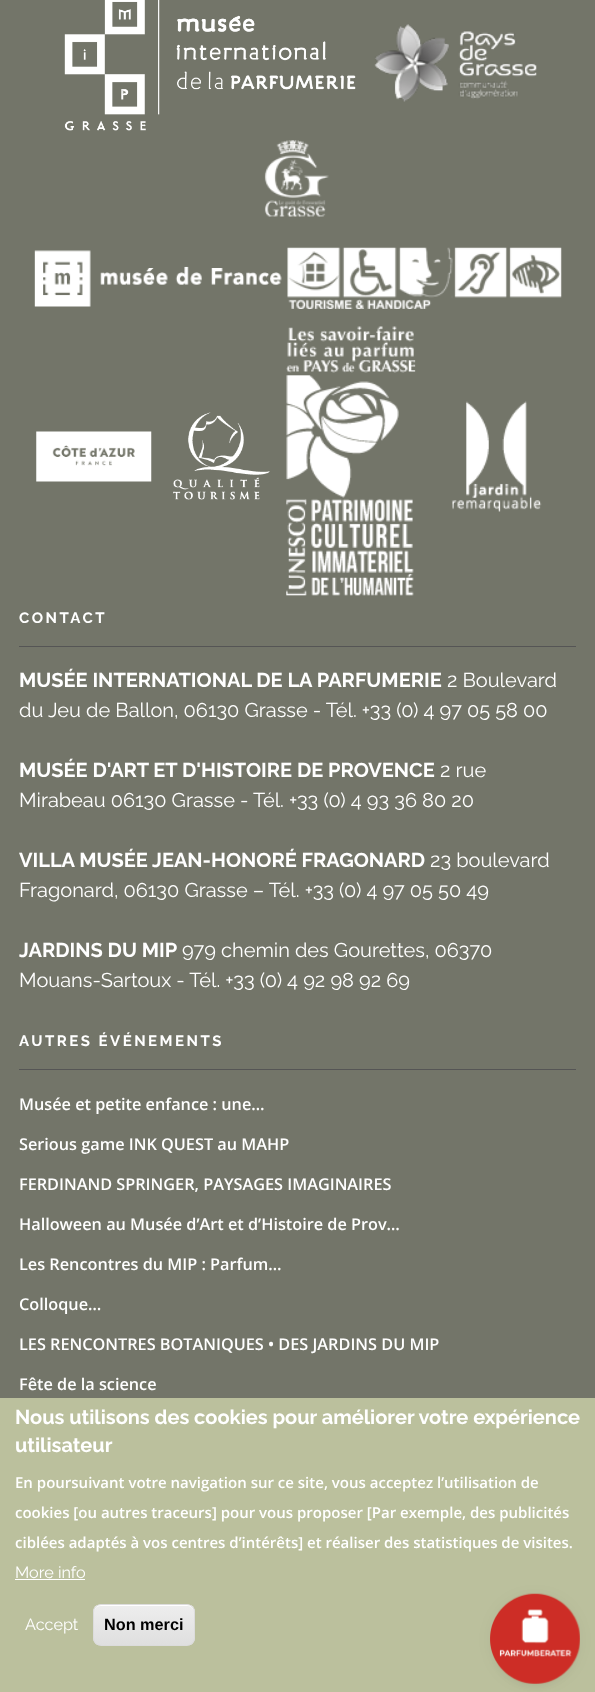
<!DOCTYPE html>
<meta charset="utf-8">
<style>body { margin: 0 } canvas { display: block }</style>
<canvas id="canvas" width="595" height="1692"></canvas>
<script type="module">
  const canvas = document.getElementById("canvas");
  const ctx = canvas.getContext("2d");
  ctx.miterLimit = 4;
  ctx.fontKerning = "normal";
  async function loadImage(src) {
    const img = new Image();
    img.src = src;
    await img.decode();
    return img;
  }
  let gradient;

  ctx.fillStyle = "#737569";
  ctx.fillRect(0, 0, 595, 1692);
  ctx.drawImage(await loadImage("img1.png"), 64, 0, 292, 131);
  ctx.drawImage(await loadImage("img2.png"), 374, 24, 163, 78);
  ctx.drawImage(await loadImage("img3.png"), 264, 140, 65, 77);
  ctx.drawImage(await loadImage("img4.png"), 34, 250, 248, 57);
  ctx.drawImage(await loadImage("img5.png"), 287, 247, 166, 62);
  ctx.drawImage(await loadImage("img6.png"), 454, 247, 108, 51);
  ctx.drawImage(await loadImage("img7.png"), 36, 431, 116, 51);
  ctx.drawImage(await loadImage("img8.png"), 173, 412, 97, 88);
  ctx.drawImage(await loadImage("img9.png"), 286, 326, 130, 270);
  ctx.drawImage(await loadImage("img10.png"), 451, 401, 91, 111);
  ctx.fillStyle = "#555555";
  ctx.fillRect(19, 646, 557, 1);
  ctx.letterSpacing = "2.5px";
  ctx.font = "bold 15px Raleway";
  ctx.fillStyle = "#ffffff";
  ctx.fillText("CONTACT", 19, 623);
  ctx.letterSpacing = "0px";
  ctx.font = "bold 20px Raleway";
  ctx.fillText("MUSÉE INTERNATIONAL DE LA PARFUMERIE", 19, 687);
  ctx.font = "20px Raleway";
  ctx.fillText("2 Boulevard", 447, 687);
  ctx.fillText("du Jeu de Ballon, 06130 Grasse - Tél. +33 (0) 4 97 05 58 00", 19, 717);
  ctx.font = "bold 20px Raleway";
  ctx.fillText("MUSÉE D'ART ET D'HISTOIRE DE PROVENCE", 19, 777);
  ctx.font = "20px Raleway";
  ctx.fillText("2 rue", 440, 777);
  ctx.fillText("Mirabeau 06130 Grasse - Tél. +33 (0) 4 93 36 80 20", 19, 807);
  ctx.font = "bold 20px Raleway";
  ctx.fillText("VILLA MUSÉE JEAN-HONORÉ FRAGONARD", 19, 867);
  ctx.font = "20px Raleway";
  ctx.fillText("23 boulevard", 430, 867);
  ctx.fillText("Fragonard, 06130 Grasse – Tél. +33 (0) 4 97 05 50 49", 19, 897);
  ctx.font = "bold 20px Raleway";
  ctx.fillText("JARDINS DU MIP", 19, 957);
  ctx.font = "20px Raleway";
  ctx.fillText("979 chemin des Gourettes, 06370", 182, 957);
  ctx.fillText("Mouans-Sartoux - Tél. +33 (0) 4 92 98 92 69", 19, 987);
  ctx.fillStyle = "#555555";
  ctx.fillRect(19, 1069, 557, 1);
  ctx.letterSpacing = "2.5px";
  ctx.font = "bold 15px Raleway";
  ctx.fillStyle = "#ffffff";
  ctx.fillText("AUTRES ÉVÉNEMENTS", 19, 1046);
  ctx.letterSpacing = "0px";
  ctx.font = "600 16.25px Open Sans";
  ctx.fillText("Musée et petite enfance : une…", 19, 1110);
  ctx.fillText("Serious game INK QUEST au MAHP", 19, 1150);
  ctx.fillText("FERDINAND SPRINGER, PAYSAGES IMAGINAIRES", 19, 1190);
  ctx.fillText("Halloween au Musée d’Art et d’Histoire de Prov…", 19, 1230);
  ctx.fillText("Les Rencontres du MIP : Parfum…", 19, 1270);
  ctx.fillText("Colloque…", 19, 1310);
  ctx.fillText("LES RENCONTRES BOTANIQUES • DES JARDINS DU MIP", 19, 1350);
  ctx.fillText("Fête de la science", 19, 1390);
  ctx.fillStyle = "#bbc09d";
  ctx.fillRect(0, 1398, 595, 294);
  ctx.font = "bold 20px Raleway";
  ctx.fillStyle = "#ffffff";
  ctx.fillText("Nous utilisons des cookies pour améliorer votre expérience", 15, 1424);
  ctx.fillText("utilisateur", 15, 1452);
  ctx.font = "600 15px Open Sans";
  ctx.fillText("En poursuivant votre navigation sur ce site, vous acceptez l’utilisation de", 15, 1488);
  ctx.fillText("cookies [ou autres traceurs] pour vous proposer [Par exemple, des publicités", 15, 1518);
  ctx.fillText("ciblées adaptés à vos centres d’intérêts] et réaliser des statistiques de visites.", 15, 1548);
  ctx.font = "16.25px Raleway";
  ctx.fillText("More info", 15, 1578);
  ctx.fillRect(15, 1579, 70, 1);
  ctx.fillText("Accept", 25, 1630);
  ctx.save();
  ctx.beginPath();
  ctx.roundRect(93, 1604, 102, 42, 8);
  ctx.clip();
  gradient = ctx.createLinearGradient(144, 1605, 144, 1645);
  gradient.addColorStop(0.05, "#ededed");
  gradient.addColorStop(1, "#dfdfdf");
  ctx.fillStyle = gradient;
  ctx.fillRect(93, 1605, 102, 40);
  ctx.restore();
  ctx.beginPath();
  ctx.moveTo(100, 1606);
  ctx.lineTo(188, 1606);
  ctx.bezierCurveTo(191, 1606, 194, 1609, 194, 1612);
  ctx.bezierCurveTo(194, 1601, 180, 1605, 173, 1605);
  ctx.lineTo(115, 1605);
  ctx.bezierCurveTo(108, 1605, 94, 1601, 94, 1612);
  ctx.bezierCurveTo(94, 1609, 97, 1606, 100, 1606);
  ctx.closePath();
  ctx.fill();
  ctx.beginPath();
  ctx.roundRect(93.5, 1604.5, 101, 41, 7.5);
  ctx.strokeStyle = "#dcdcdc";
  ctx.stroke();
  ctx.font = "bold 16.25px Liberation Sans";
  ctx.fillStyle = "#000000";
  ctx.fillText("Non merci", 104, 1630);
  ctx.fillStyle = "rgba(0, 0, 0, 0.12)";
  ctx.filter = "blur(11px)";
  ctx.beginPath();
  ctx.roundRect(500, 1605, 70, 70, 35);
  ctx.fill();
  ctx.filter = "none";
  ctx.fillStyle = "rgba(0, 0, 0, 0.14)";
  ctx.filter = "blur(6px)";
  ctx.beginPath();
  ctx.roundRect(500, 1611, 70, 70, 35);
  ctx.fill();
  ctx.filter = "none";
  ctx.drawImage(await loadImage("img11.png"), 490, 1593, 90, 91);
</script>
